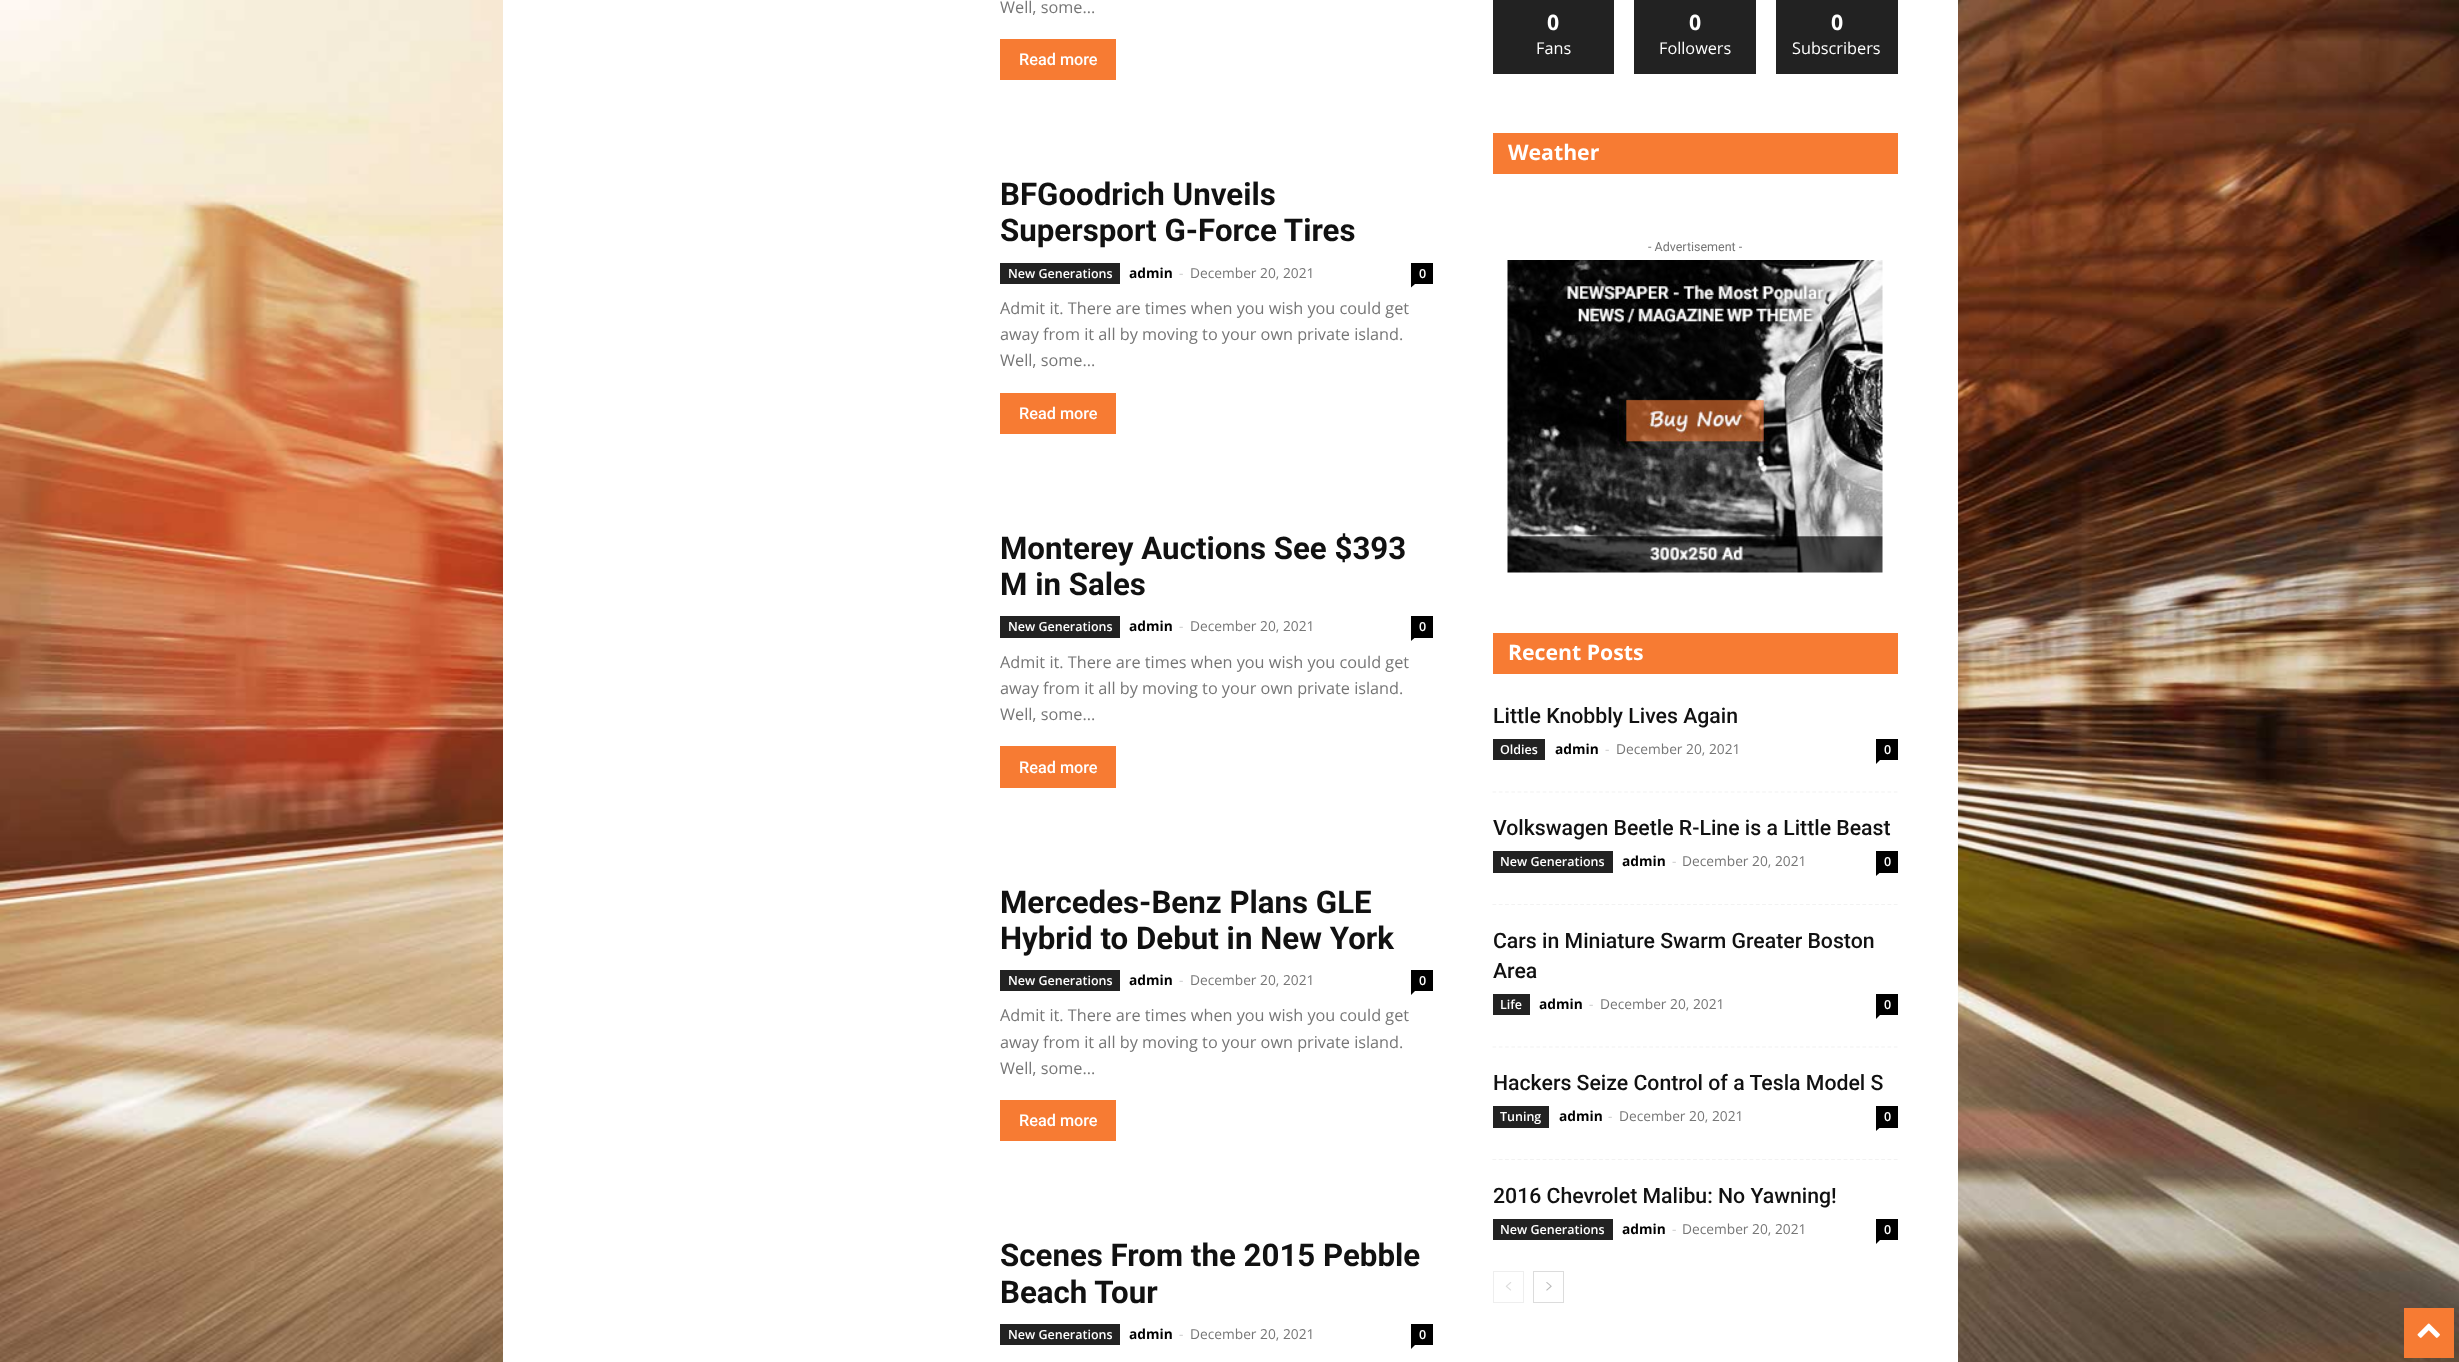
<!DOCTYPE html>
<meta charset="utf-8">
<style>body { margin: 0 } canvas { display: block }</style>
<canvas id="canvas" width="2459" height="1362"></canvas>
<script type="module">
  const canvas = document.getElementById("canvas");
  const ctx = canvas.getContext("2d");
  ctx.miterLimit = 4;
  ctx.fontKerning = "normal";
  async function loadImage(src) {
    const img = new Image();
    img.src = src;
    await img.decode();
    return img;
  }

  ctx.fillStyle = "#ffffff";
  ctx.fillRect(0, 0, 2459, 1362);
  ctx.drawImage(await loadImage("img1.png"), 0, 0, 2459, 1362);
  ctx.fillRect(503, 0, 1455, 1362);
  ctx.font = "16.25px Open Sans";
  ctx.fillStyle = "#767676";
  ctx.fillText("Well, some...", 1000, 13);
  ctx.fillStyle = "#f77b33";
  ctx.fillRect(1000, 39, 116, 41);
  ctx.font = "500 16.25px Roboto";
  ctx.fillStyle = "#ffffff";
  ctx.fillText("Read more", 1019, 65);
  ctx.font = "bold 31.25px Roboto";
  ctx.fillStyle = "#111111";
  ctx.fillText("BFGoodrich Unveils", 1000, 205);
  ctx.fillText("Supersport G-Force Tires", 1000, 241);
  ctx.fillStyle = "#222222";
  ctx.fillRect(1000, 263, 120, 21);
  ctx.font = "600 12.5px Open Sans";
  ctx.fillStyle = "#ffffff";
  ctx.fillText("New Generations", 1008, 278);
  ctx.font = "bold 13.75px Open Sans";
  ctx.fillStyle = "#000000";
  ctx.fillText("admin", 1129, 278);
  ctx.font = "13.75px Open Sans";
  ctx.fillStyle = "#cccccc";
  ctx.fillText("-", 1179, 278);
  ctx.fillStyle = "#767676";
  ctx.fillText("December 20, 2021", 1190, 278);
  ctx.fillStyle = "#000000";
  ctx.fillRect(1411, 263, 22, 21);
  ctx.font = "600 12.5px Open Sans";
  ctx.fillStyle = "#ffffff";
  ctx.fillText("0", 1419, 278);
  ctx.fillStyle = "#000000";
  ctx.beginPath();
  ctx.moveTo(1411, 284);
  ctx.lineTo(1415, 284);
  ctx.lineTo(1411, 287.5);
  ctx.closePath();
  ctx.fill();
  ctx.font = "16.25px Open Sans";
  ctx.fillStyle = "#767676";
  ctx.fillText("Admit it. There are times when you wish you could get", 1000, 314);
  ctx.fillText("away from it all by moving to your own private island.", 1000, 340);
  ctx.fillText("Well, some...", 1000, 366);
  ctx.fillStyle = "#f77b33";
  ctx.fillRect(1000, 393, 116, 41);
  ctx.font = "500 16.25px Roboto";
  ctx.fillStyle = "#ffffff";
  ctx.fillText("Read more", 1019, 419);
  ctx.font = "bold 31.25px Roboto";
  ctx.fillStyle = "#111111";
  ctx.fillText("Monterey Auctions See $393", 1000, 559);
  ctx.fillText("M in Sales", 1000, 595);
  ctx.fillStyle = "#222222";
  ctx.fillRect(1000, 616, 120, 22);
  ctx.font = "600 12.5px Open Sans";
  ctx.fillStyle = "#ffffff";
  ctx.fillText("New Generations", 1008, 631);
  ctx.font = "bold 13.75px Open Sans";
  ctx.fillStyle = "#000000";
  ctx.fillText("admin", 1129, 631);
  ctx.font = "13.75px Open Sans";
  ctx.fillStyle = "#cccccc";
  ctx.fillText("-", 1179, 631);
  ctx.fillStyle = "#767676";
  ctx.fillText("December 20, 2021", 1190, 631);
  ctx.fillStyle = "#000000";
  ctx.fillRect(1411, 616, 22, 22);
  ctx.font = "600 12.5px Open Sans";
  ctx.fillStyle = "#ffffff";
  ctx.fillText("0", 1419, 631);
  ctx.fillStyle = "#000000";
  ctx.beginPath();
  ctx.moveTo(1411, 637.5);
  ctx.lineTo(1415, 637.5);
  ctx.lineTo(1411, 641);
  ctx.closePath();
  ctx.fill();
  ctx.font = "16.25px Open Sans";
  ctx.fillStyle = "#767676";
  ctx.fillText("Admit it. There are times when you wish you could get", 1000, 668);
  ctx.fillText("away from it all by moving to your own private island.", 1000, 694);
  ctx.fillText("Well, some...", 1000, 720);
  ctx.fillStyle = "#f77b33";
  ctx.fillRect(1000, 746, 116, 42);
  ctx.font = "500 16.25px Roboto";
  ctx.fillStyle = "#ffffff";
  ctx.fillText("Read more", 1019, 773);
  ctx.font = "bold 31.25px Roboto";
  ctx.fillStyle = "#111111";
  ctx.fillText("Mercedes-Benz Plans GLE", 1000, 913);
  ctx.fillText("Hybrid to Debut in New York", 1000, 949);
  ctx.fillStyle = "#222222";
  ctx.fillRect(1000, 970, 120, 21);
  ctx.font = "600 12.5px Open Sans";
  ctx.fillStyle = "#ffffff";
  ctx.fillText("New Generations", 1008, 985);
  ctx.font = "bold 13.75px Open Sans";
  ctx.fillStyle = "#000000";
  ctx.fillText("admin", 1129, 985);
  ctx.font = "13.75px Open Sans";
  ctx.fillStyle = "#cccccc";
  ctx.fillText("-", 1179, 985);
  ctx.fillStyle = "#767676";
  ctx.fillText("December 20, 2021", 1190, 985);
  ctx.fillStyle = "#000000";
  ctx.fillRect(1411, 970, 22, 21);
  ctx.font = "600 12.5px Open Sans";
  ctx.fillStyle = "#ffffff";
  ctx.fillText("0", 1419, 985);
  ctx.fillStyle = "#000000";
  ctx.beginPath();
  ctx.moveTo(1411, 991);
  ctx.lineTo(1415, 991);
  ctx.lineTo(1411, 995);
  ctx.closePath();
  ctx.fill();
  ctx.font = "16.25px Open Sans";
  ctx.fillStyle = "#767676";
  ctx.fillText("Admit it. There are times when you wish you could get", 1000, 1021);
  ctx.fillText("away from it all by moving to your own private island.", 1000, 1048);
  ctx.fillText("Well, some...", 1000, 1074);
  ctx.fillStyle = "#f77b33";
  ctx.fillRect(1000, 1100, 116, 41);
  ctx.font = "500 16.25px Roboto";
  ctx.fillStyle = "#ffffff";
  ctx.fillText("Read more", 1019, 1126);
  ctx.font = "bold 31.25px Roboto";
  ctx.fillStyle = "#111111";
  ctx.fillText("Scenes From the 2015 Pebble", 1000, 1266);
  ctx.fillText("Beach Tour", 1000, 1303);
  ctx.fillStyle = "#222222";
  ctx.fillRect(1000, 1324, 120, 21);
  ctx.font = "600 12.5px Open Sans";
  ctx.fillStyle = "#ffffff";
  ctx.fillText("New Generations", 1008, 1339);
  ctx.font = "bold 13.75px Open Sans";
  ctx.fillStyle = "#000000";
  ctx.fillText("admin", 1129, 1339);
  ctx.font = "13.75px Open Sans";
  ctx.fillStyle = "#cccccc";
  ctx.fillText("-", 1179, 1339);
  ctx.fillStyle = "#767676";
  ctx.fillText("December 20, 2021", 1190, 1339);
  ctx.fillStyle = "#000000";
  ctx.fillRect(1411, 1324, 22, 21);
  ctx.font = "600 12.5px Open Sans";
  ctx.fillStyle = "#ffffff";
  ctx.fillText("0", 1419, 1339);
  ctx.fillStyle = "#000000";
  ctx.beginPath();
  ctx.moveTo(1411, 1345);
  ctx.lineTo(1415, 1345);
  ctx.lineTo(1411, 1349);
  ctx.closePath();
  ctx.fill();
  ctx.fillStyle = "#222222";
  ctx.fillRect(1493, 0, 121, 74);
  ctx.font = "bold 21.25px Open Sans";
  ctx.fillStyle = "#ffffff";
  ctx.fillText("0", 1547, 30);
  ctx.font = "16.25px Open Sans";
  ctx.fillText("Fans", 1536, 54);
  ctx.fillStyle = "#222222";
  ctx.fillRect(1634, 0, 122, 74);
  ctx.font = "bold 21.25px Open Sans";
  ctx.fillStyle = "#ffffff";
  ctx.fillText("0", 1689, 30);
  ctx.font = "16.25px Open Sans";
  ctx.fillText("Followers", 1659, 54);
  ctx.fillStyle = "#222222";
  ctx.fillRect(1776, 0, 122, 74);
  ctx.font = "bold 21.25px Open Sans";
  ctx.fillStyle = "#ffffff";
  ctx.fillText("0", 1831, 30);
  ctx.font = "16.25px Open Sans";
  ctx.fillText("Subscribers", 1792, 54);
  ctx.fillStyle = "#f77b33";
  ctx.fillRect(1493, 133, 405, 41);
  ctx.font = "bold 21.25px Open Sans";
  ctx.fillStyle = "#ffffff";
  ctx.fillText("Weather", 1508, 160);
  ctx.font = "12.5px Roboto";
  ctx.fillStyle = "#767676";
  ctx.fillText("- Advertisement -", 1648, 251);
  ctx.drawImage(await loadImage("img2.png"), 1507, 260, 376, 313);
  ctx.fillStyle = "#f77b33";
  ctx.fillRect(1493, 633, 405, 41);
  ctx.font = "bold 21.25px Open Sans";
  ctx.fillStyle = "#ffffff";
  ctx.fillText("Recent Posts", 1508, 660);
  ctx.beginPath();
  ctx.moveTo(1492.5, 792);
  ctx.lineTo(1897.5, 792);
  ctx.strokeStyle = "#f2f2f2";
  ctx.lineWidth = 1.2;
  ctx.setLineDash([3.75, 2.52]);
  ctx.stroke();
  ctx.font = "500 21.25px Roboto";
  ctx.fillStyle = "#111111";
  ctx.fillText("Little Knobbly Lives Again", 1493, 723);
  ctx.fillStyle = "#222222";
  ctx.fillRect(1493, 739, 52, 21);
  ctx.font = "600 12.5px Open Sans";
  ctx.fillStyle = "#ffffff";
  ctx.fillText("Oldies", 1500, 754);
  ctx.font = "bold 13.75px Open Sans";
  ctx.fillStyle = "#000000";
  ctx.fillText("admin", 1555, 754);
  ctx.font = "13.75px Open Sans";
  ctx.fillStyle = "#cccccc";
  ctx.fillText("-", 1605, 754);
  ctx.fillStyle = "#767676";
  ctx.fillText("December 20, 2021", 1616, 754);
  ctx.fillStyle = "#000000";
  ctx.fillRect(1876, 739, 22, 21);
  ctx.font = "600 12.5px Open Sans";
  ctx.fillStyle = "#ffffff";
  ctx.fillText("0", 1884, 754);
  ctx.fillStyle = "#000000";
  ctx.beginPath();
  ctx.moveTo(1876, 760);
  ctx.lineTo(1880, 760);
  ctx.lineTo(1876, 764);
  ctx.closePath();
  ctx.fill();
  ctx.beginPath();
  ctx.moveTo(1492.5, 904.5);
  ctx.lineTo(1897.5, 904.5);
  ctx.stroke();
  ctx.font = "500 21.25px Roboto";
  ctx.fillStyle = "#111111";
  ctx.fillText("Volkswagen Beetle R-Line is a Little Beast", 1493, 835);
  ctx.fillStyle = "#222222";
  ctx.fillRect(1493, 851, 120, 22);
  ctx.font = "600 12.5px Open Sans";
  ctx.fillStyle = "#ffffff";
  ctx.fillText("New Generations", 1500, 866);
  ctx.font = "bold 13.75px Open Sans";
  ctx.fillStyle = "#000000";
  ctx.fillText("admin", 1622, 866);
  ctx.font = "13.75px Open Sans";
  ctx.fillStyle = "#cccccc";
  ctx.fillText("-", 1672, 866);
  ctx.fillStyle = "#767676";
  ctx.fillText("December 20, 2021", 1682, 866);
  ctx.fillStyle = "#000000";
  ctx.fillRect(1876, 851, 22, 22);
  ctx.font = "600 12.5px Open Sans";
  ctx.fillStyle = "#ffffff";
  ctx.fillText("0", 1884, 866);
  ctx.fillStyle = "#000000";
  ctx.beginPath();
  ctx.moveTo(1876, 872.5);
  ctx.lineTo(1880, 872.5);
  ctx.lineTo(1876, 876);
  ctx.closePath();
  ctx.fill();
  ctx.beginPath();
  ctx.moveTo(1492.5, 1047);
  ctx.lineTo(1897.5, 1047);
  ctx.stroke();
  ctx.font = "500 21.25px Roboto";
  ctx.fillStyle = "#111111";
  ctx.fillText("Cars in Miniature Swarm Greater Boston", 1493, 948);
  ctx.fillText("Area", 1493, 978);
  ctx.fillStyle = "#222222";
  ctx.fillRect(1493, 994, 37, 21);
  ctx.font = "600 12.5px Open Sans";
  ctx.fillStyle = "#ffffff";
  ctx.fillText("Life", 1500, 1009);
  ctx.font = "bold 13.75px Open Sans";
  ctx.fillStyle = "#000000";
  ctx.fillText("admin", 1539, 1009);
  ctx.font = "13.75px Open Sans";
  ctx.fillStyle = "#cccccc";
  ctx.fillText("-", 1589, 1009);
  ctx.fillStyle = "#767676";
  ctx.fillText("December 20, 2021", 1600, 1009);
  ctx.fillStyle = "#000000";
  ctx.fillRect(1876, 994, 22, 21);
  ctx.font = "600 12.5px Open Sans";
  ctx.fillStyle = "#ffffff";
  ctx.fillText("0", 1884, 1009);
  ctx.fillStyle = "#000000";
  ctx.beginPath();
  ctx.moveTo(1876, 1015);
  ctx.lineTo(1880, 1015);
  ctx.lineTo(1876, 1019);
  ctx.closePath();
  ctx.fill();
  ctx.beginPath();
  ctx.moveTo(1492.5, 1159.5);
  ctx.lineTo(1897.5, 1159.5);
  ctx.stroke();
  ctx.font = "500 21.25px Roboto";
  ctx.fillStyle = "#111111";
  ctx.fillText("Hackers Seize Control of a Tesla Model S", 1493, 1090);
  ctx.fillStyle = "#222222";
  ctx.fillRect(1493, 1106, 56, 22);
  ctx.font = "600 12.5px Open Sans";
  ctx.fillStyle = "#ffffff";
  ctx.fillText("Tuning", 1500, 1121);
  ctx.font = "bold 13.75px Open Sans";
  ctx.fillStyle = "#000000";
  ctx.fillText("admin", 1559, 1121);
  ctx.font = "13.75px Open Sans";
  ctx.fillStyle = "#cccccc";
  ctx.fillText("-", 1608, 1121);
  ctx.fillStyle = "#767676";
  ctx.fillText("December 20, 2021", 1619, 1121);
  ctx.fillStyle = "#000000";
  ctx.fillRect(1876, 1106, 22, 22);
  ctx.font = "600 12.5px Open Sans";
  ctx.fillStyle = "#ffffff";
  ctx.fillText("0", 1884, 1121);
  ctx.fillStyle = "#000000";
  ctx.beginPath();
  ctx.moveTo(1876, 1127.5);
  ctx.lineTo(1880, 1127.5);
  ctx.lineTo(1876, 1131);
  ctx.closePath();
  ctx.fill();
  ctx.font = "500 21.25px Roboto";
  ctx.fillStyle = "#111111";
  ctx.fillText("2016 Chevrolet Malibu: No Yawning!", 1493, 1203);
  ctx.fillStyle = "#222222";
  ctx.fillRect(1493, 1219, 120, 21);
  ctx.font = "600 12.5px Open Sans";
  ctx.fillStyle = "#ffffff";
  ctx.fillText("New Generations", 1500, 1234);
  ctx.font = "bold 13.75px Open Sans";
  ctx.fillStyle = "#000000";
  ctx.fillText("admin", 1622, 1234);
  ctx.font = "13.75px Open Sans";
  ctx.fillStyle = "#cccccc";
  ctx.fillText("-", 1672, 1234);
  ctx.fillStyle = "#767676";
  ctx.fillText("December 20, 2021", 1682, 1234);
  ctx.fillStyle = "#000000";
  ctx.fillRect(1876, 1219, 22, 21);
  ctx.font = "600 12.5px Open Sans";
  ctx.fillStyle = "#ffffff";
  ctx.fillText("0", 1884, 1234);
  ctx.fillStyle = "#000000";
  ctx.beginPath();
  ctx.moveTo(1876, 1240);
  ctx.lineTo(1880, 1240);
  ctx.lineTo(1876, 1244);
  ctx.closePath();
  ctx.fill();
  ctx.strokeStyle = "#eeeeee";
  ctx.lineWidth = 1;
  ctx.setLineDash([]);
  ctx.strokeRect(1493.5, 1271.5, 30, 31);
  ctx.drawImage(await loadImage("img3.png"), 1505, 1282, 7, 9);
  ctx.strokeStyle = "#dcdcdc";
  ctx.strokeRect(1533.5, 1271.5, 30, 31);
  ctx.drawImage(await loadImage("img4.png"), 1546, 1282, 6, 9);
  ctx.fillStyle = "#f77b33";
  ctx.fillRect(2404, 1308, 50, 50);
  ctx.drawImage(await loadImage("img5.png"), 2417, 1323, 23, 15);
</script>
